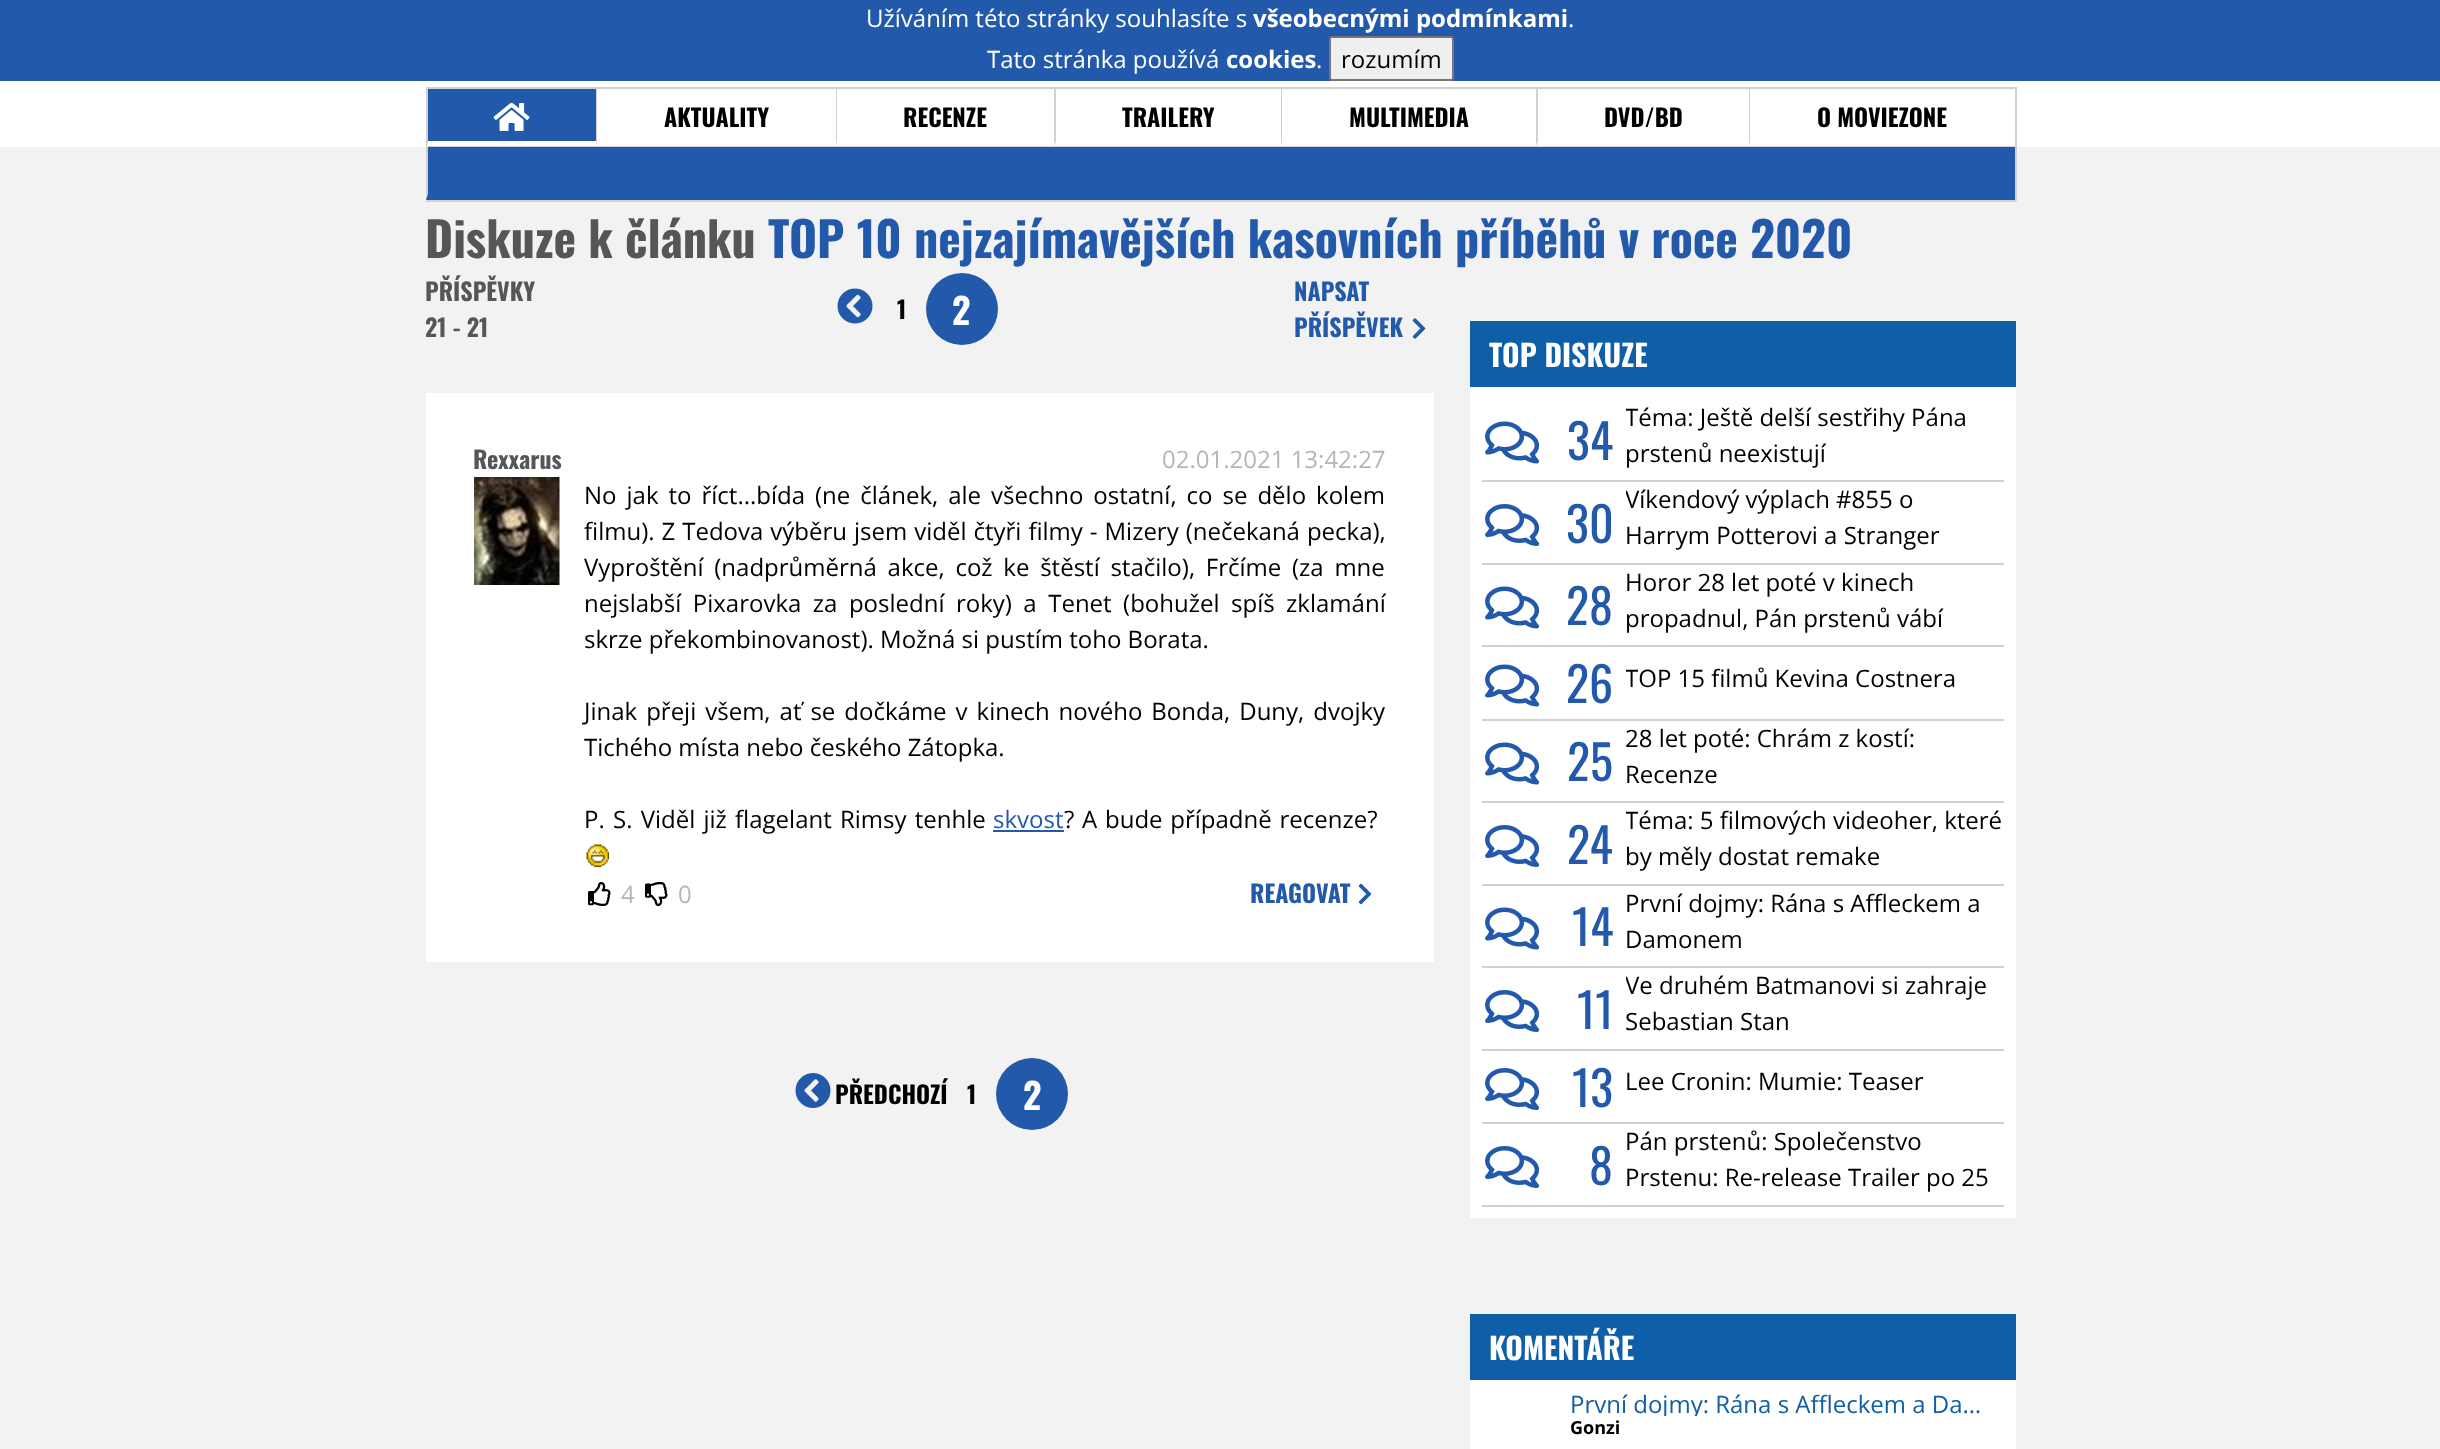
<!DOCTYPE html>
<meta charset="utf-8">
<style>body { margin: 0 } canvas { display: block }</style>
<canvas id="canvas" width="2440" height="1449"></canvas>
<script type="module">
  const canvas = document.getElementById("canvas");
  const ctx = canvas.getContext("2d");
  ctx.miterLimit = 4;
  ctx.fontKerning = "normal";
  async function loadImage(src) {
    const img = new Image();
    img.src = src;
    await img.decode();
    return img;
  }

  ctx.fillStyle = "#f2f2f2";
  ctx.fillRect(0, 0, 2440, 1449);
  ctx.fillStyle = "#2359ab";
  ctx.fillRect(0, 0, 2440, 81);
  ctx.font = "24px Open Sans";
  ctx.fillStyle = "#ffffff";
  ctx.fillText("Užíváním této stránky souhlasíte s", 866, 27);
  ctx.font = "bold 24px Open Sans";
  ctx.fillText("všeobecnými podmínkami", 1253, 27);
  ctx.font = "24px Open Sans";
  ctx.fillText(".", 1568, 27);
  ctx.fillText("Tato stránka používá", 987, 68);
  ctx.font = "bold 24px Open Sans";
  ctx.fillText("cookies", 1226, 68);
  ctx.font = "24px Open Sans";
  ctx.fillText(".", 1316, 68);
  ctx.fillStyle = "#efefef";
  ctx.beginPath();
  ctx.roundRect(1330, 37, 123, 43, 2);
  ctx.fill();
  ctx.strokeStyle = "#767676";
  ctx.lineWidth = 2;
  ctx.stroke();
  ctx.fillStyle = "#000000";
  ctx.fillText("rozumím", 1341, 68);
  ctx.fillStyle = "#ffffff";
  ctx.fillRect(0, 81, 2440, 66);
  ctx.fillStyle = "#d1d1d1";
  ctx.fillRect(426, 87, 1590, 2);
  ctx.fillRect(2015, 87, 2, 114);
  ctx.fillRect(426, 146, 1590, 1);
  ctx.fillStyle = "#2359ab";
  ctx.fillRect(426, 89, 170, 57);
  ctx.fillStyle = "#ffffff";
  ctx.beginPath();
  ctx.moveTo(596, 146);
  ctx.lineTo(426, 146);
  ctx.lineTo(428, 141);
  ctx.lineTo(596, 141);
  ctx.closePath();
  ctx.fill();
  ctx.fillStyle = "#d1d1d1";
  ctx.beginPath();
  ctx.moveTo(426, 146);
  ctx.lineTo(426, 88);
  ctx.lineTo(428, 88);
  ctx.lineTo(428, 141);
  ctx.closePath();
  ctx.fill();
  ctx.drawImage(await loadImage("img1.png"), 493, 103, 37, 28);
  ctx.beginPath();
  ctx.moveTo(596, 146);
  ctx.lineTo(596, 88);
  ctx.lineTo(597, 88);
  ctx.lineTo(597, 141);
  ctx.closePath();
  ctx.fill();
  ctx.font = "bold 24px Oswald";
  ctx.fillStyle = "#000000";
  ctx.fillText("AKTUALITY", 664, 127);
  ctx.fillStyle = "#d1d1d1";
  ctx.beginPath();
  ctx.moveTo(836, 146);
  ctx.lineTo(836, 88);
  ctx.lineTo(837, 88);
  ctx.lineTo(837, 141);
  ctx.closePath();
  ctx.fill();
  ctx.fillStyle = "#000000";
  ctx.fillText("RECENZE", 903, 127);
  ctx.fillStyle = "#d1d1d1";
  ctx.beginPath();
  ctx.moveTo(1054, 146);
  ctx.lineTo(1054, 88);
  ctx.lineTo(1056, 88);
  ctx.lineTo(1056, 141);
  ctx.closePath();
  ctx.fill();
  ctx.fillStyle = "#000000";
  ctx.fillText("TRAILERY", 1122, 127);
  ctx.fillStyle = "#d1d1d1";
  ctx.beginPath();
  ctx.moveTo(1281, 146);
  ctx.lineTo(1281, 88);
  ctx.lineTo(1282, 88);
  ctx.lineTo(1282, 141);
  ctx.closePath();
  ctx.fill();
  ctx.fillStyle = "#000000";
  ctx.fillText("MULTIMEDIA", 1349, 127);
  ctx.fillStyle = "#d1d1d1";
  ctx.beginPath();
  ctx.moveTo(1536, 146);
  ctx.lineTo(1536, 88);
  ctx.lineTo(1538, 88);
  ctx.lineTo(1538, 141);
  ctx.closePath();
  ctx.fill();
  ctx.fillStyle = "#000000";
  ctx.fillText("DVD/BD", 1604, 127);
  ctx.fillStyle = "#d1d1d1";
  ctx.beginPath();
  ctx.moveTo(1749, 146);
  ctx.lineTo(1749, 88);
  ctx.lineTo(1750, 88);
  ctx.lineTo(1750, 141);
  ctx.closePath();
  ctx.fill();
  ctx.fillStyle = "#000000";
  ctx.fillText("O MOVIEZONE", 1817, 127);
  ctx.fillStyle = "#2359ab";
  ctx.fillRect(426, 147, 1589, 53);
  ctx.fillStyle = "#d1d1d1";
  ctx.fillRect(426, 200, 1590, 2);
  ctx.beginPath();
  ctx.moveTo(426, 200);
  ctx.lineTo(426, 147);
  ctx.lineTo(428, 147);
  ctx.lineTo(428, 194);
  ctx.closePath();
  ctx.fill();
  ctx.font = "bold 48px Oswald";
  ctx.fillStyle = "#565656";
  ctx.fillText("Diskuze k článku", 425, 258);
  ctx.fillStyle = "#2359ab";
  ctx.fillText("TOP 10 nejzajímavějších kasovních příběhů v roce 2020", 768, 258);
  ctx.font = "bold 24px Oswald";
  ctx.fillStyle = "#565656";
  ctx.fillText("PŘÍSPĚVKY", 425, 301);
  ctx.fillText("21 - 21", 425, 337);
  ctx.drawImage(await loadImage("img2.png"), 837, 288, 36, 36);
  ctx.fillStyle = "#000000";
  ctx.fillText("1", 897, 319);
  ctx.fillStyle = "#2359ab";
  ctx.beginPath();
  ctx.arc(962, 309, 36, 0, Math.PI * 2);
  ctx.fill();
  ctx.font = "bold 36px Oswald";
  ctx.fillStyle = "#ffffff";
  ctx.fillText("2", 952, 325);
  ctx.font = "bold 24px Oswald";
  ctx.fillStyle = "#2359ab";
  ctx.fillText("NAPSAT", 1294, 301);
  ctx.fillText("PŘÍSPĚVEK", 1294, 337);
  ctx.drawImage(await loadImage("img3.png"), 1412, 318, 14, 21);
  ctx.fillStyle = "#ffffff";
  ctx.fillRect(426, 393, 1008, 569);
  ctx.fillStyle = "#565656";
  ctx.fillText("Rexxarus", 473, 469);
  ctx.drawImage(await loadImage("img4.png"), 474, 477, 86, 108);
  ctx.font = "24px Open Sans";
  ctx.fillStyle = "#b5b5b5";
  ctx.fillText("02.01.2021 13:42:27", 1162, 468);
  ctx.wordSpacing = "3.75px";
  ctx.fillStyle = "#000000";
  ctx.fillText("No jak to říct...bída (ne článek, ale všechno ostatní, co se dělo kolem", 584, 504);
  ctx.wordSpacing = "0.75px";
  ctx.fillText("filmu). Z Tedova výběru jsem viděl čtyři filmy - Mizery (nečekaná pecka),", 584, 540);
  ctx.wordSpacing = "4.5px";
  ctx.fillText("Vyproštění (nadprůměrná akce, což ke štěstí stačilo), Frčíme (za mne", 584, 576);
  ctx.wordSpacing = "5.25px";
  ctx.fillText("nejslabší Pixarovka za poslední roky) a Tenet (bohužel spíš zklamání", 584, 612);
  ctx.wordSpacing = "0px";
  ctx.fillText("skrze překombinovanost). Možná si pustím toho Borata.", 584, 648);
  ctx.wordSpacing = "2.75px";
  ctx.fillText("Jinak přeji všem, ať se dočkáme v kinech nového Bonda, Duny, dvojky", 584, 720);
  ctx.wordSpacing = "0px";
  ctx.fillText("Tichého místa nebo českého Zátopka.", 584, 756);
  ctx.wordSpacing = "2px";
  ctx.fillText("P. S. Viděl již flagelant Rimsy tenhle", 584, 828);
  ctx.wordSpacing = "0px";
  ctx.fillStyle = "#2359ab";
  ctx.fillText("skvost", 993, 828);
  ctx.fillRect(993, 830, 71, 2);
  ctx.wordSpacing = "1.5px";
  ctx.fillStyle = "#000000";
  ctx.fillText("? A bude případně recenze?", 1064, 828);
  ctx.drawImage(await loadImage("img5.png"), 586, 844, 23, 23);
  ctx.drawImage(await loadImage("img6.png"), 588, 882, 23, 24);
  ctx.wordSpacing = "0px";
  ctx.fillStyle = "#b5b5b5";
  ctx.fillText("4", 621, 903);
  ctx.drawImage(await loadImage("img7.png"), 645, 882, 23, 24);
  ctx.fillText("0", 678, 903);
  ctx.font = "bold 24px Oswald";
  ctx.fillStyle = "#2359ab";
  ctx.fillText("REAGOVAT", 1250, 903);
  ctx.drawImage(await loadImage("img8.png"), 1358, 883, 14, 22);
  ctx.drawImage(await loadImage("img9.png"), 795, 1073, 36, 35);
  ctx.fillStyle = "#000000";
  ctx.fillText("PŘEDCHOZÍ", 835, 1104);
  ctx.fillText("1", 967, 1104);
  ctx.fillStyle = "#2359ab";
  ctx.beginPath();
  ctx.arc(1032, 1094, 36, 0, Math.PI * 2);
  ctx.fill();
  ctx.font = "bold 36px Oswald";
  ctx.fillStyle = "#ffffff";
  ctx.fillText("2", 1023, 1110);
  ctx.fillRect(1470, 387, 546, 831);
  ctx.fillStyle = "#0f5ea8";
  ctx.fillRect(1470, 321, 546, 66);
  ctx.font = "bold 30px Oswald";
  ctx.fillStyle = "#ffffff";
  ctx.fillText("TOP DISKUZE", 1489, 367);
  ctx.fillStyle = "#d1d1d1";
  ctx.fillRect(1482, 480, 522, 2);
  ctx.drawImage(await loadImage("img10.png"), 1485, 421, 55, 43);
  ctx.font = "48px Oswald";
  ctx.fillStyle = "#2359ab";
  ctx.fillText("34", 1567, 460);
  ctx.save();
  ctx.beginPath();
  ctx.rect(1626, 399, 378, 72);
  ctx.clip();
  ctx.font = "24px Open Sans";
  ctx.fillStyle = "#000000";
  ctx.fillText("Téma: Ještě delší sestřihy Pána", 1625, 426);
  ctx.restore();
  ctx.font = "24px Open Sans";
  ctx.fillStyle = "#000000";
  ctx.fillText("prstenů neexistují", 1625, 462);
  ctx.fillStyle = "#d1d1d1";
  ctx.fillRect(1482, 563, 522, 2);
  ctx.drawImage(await loadImage("img11.png"), 1485, 504, 55, 42);
  ctx.font = "48px Oswald";
  ctx.fillStyle = "#2359ab";
  ctx.fillText("30", 1566, 543);
  ctx.save();
  ctx.beginPath();
  ctx.rect(1626, 482, 378, 72);
  ctx.clip();
  ctx.font = "24px Open Sans";
  ctx.fillStyle = "#000000";
  ctx.fillText("Víkendový výplach #855 o", 1625, 508);
  ctx.restore();
  ctx.font = "24px Open Sans";
  ctx.fillStyle = "#000000";
  ctx.fillText("Harrym Potterovi a Stranger", 1625, 544);
  ctx.fillStyle = "#d1d1d1";
  ctx.fillRect(1482, 645, 522, 2);
  ctx.drawImage(await loadImage("img10.png"), 1485, 586, 55, 43);
  ctx.font = "48px Oswald";
  ctx.fillStyle = "#2359ab";
  ctx.fillText("28", 1566, 625);
  ctx.font = "24px Open Sans";
  ctx.fillStyle = "#000000";
  ctx.fillText("Horor 28 let poté v kinech", 1625, 591);
  ctx.fillText("propadnul, Pán prstenů vábí", 1625, 627);
  ctx.fillStyle = "#d1d1d1";
  ctx.fillRect(1482, 719, 522, 2);
  ctx.drawImage(await loadImage("img10.png"), 1485, 664, 55, 43);
  ctx.font = "48px Oswald";
  ctx.fillStyle = "#2359ab";
  ctx.fillText("26", 1566, 703);
  ctx.save();
  ctx.beginPath();
  ctx.rect(1626, 660, 378, 36);
  ctx.clip();
  ctx.font = "24px Open Sans";
  ctx.fillStyle = "#000000";
  ctx.fillText("TOP 15 filmů Kevina Costnera", 1625, 687);
  ctx.restore();
  ctx.fillStyle = "#d1d1d1";
  ctx.fillRect(1482, 801, 522, 2);
  ctx.drawImage(await loadImage("img10.png"), 1485, 742, 55, 43);
  ctx.fillStyle = "#2359ab";
  ctx.fillText("25", 1567, 781);
  ctx.font = "24px Open Sans";
  ctx.fillStyle = "#000000";
  ctx.fillText("28 let poté: Chrám z kostí:", 1625, 747);
  ctx.fillText("Recenze", 1625, 783);
  ctx.fillStyle = "#d1d1d1";
  ctx.fillRect(1482, 884, 522, 2);
  ctx.drawImage(await loadImage("img11.png"), 1485, 825, 55, 42);
  ctx.font = "48px Oswald";
  ctx.fillStyle = "#2359ab";
  ctx.fillText("24", 1567, 864);
  ctx.save();
  ctx.beginPath();
  ctx.rect(1626, 803, 378, 72);
  ctx.clip();
  ctx.font = "24px Open Sans";
  ctx.fillStyle = "#000000";
  ctx.fillText("Téma: 5 filmových videoher, které", 1625, 829);
  ctx.restore();
  ctx.font = "24px Open Sans";
  ctx.fillStyle = "#000000";
  ctx.fillText("by měly dostat remake", 1625, 865);
  ctx.fillStyle = "#d1d1d1";
  ctx.fillRect(1482, 966, 522, 2);
  ctx.drawImage(await loadImage("img10.png"), 1485, 907, 55, 43);
  ctx.font = "48px Oswald";
  ctx.fillStyle = "#2359ab";
  ctx.fillText("14", 1572, 946);
  ctx.font = "24px Open Sans";
  ctx.fillStyle = "#000000";
  ctx.fillText("První dojmy: Rána s Affleckem a", 1625, 912);
  ctx.fillText("Damonem", 1625, 948);
  ctx.fillStyle = "#d1d1d1";
  ctx.fillRect(1482, 1049, 522, 2);
  ctx.drawImage(await loadImage("img11.png"), 1485, 990, 55, 42);
  ctx.font = "48px Oswald";
  ctx.fillStyle = "#2359ab";
  ctx.fillText("11", 1577, 1029);
  ctx.save();
  ctx.beginPath();
  ctx.rect(1626, 968, 378, 72);
  ctx.clip();
  ctx.font = "24px Open Sans";
  ctx.fillStyle = "#000000";
  ctx.fillText("Ve druhém Batmanovi si zahraje", 1625, 994);
  ctx.restore();
  ctx.font = "24px Open Sans";
  ctx.fillStyle = "#000000";
  ctx.fillText("Sebastian Stan", 1625, 1030);
  ctx.fillStyle = "#d1d1d1";
  ctx.fillRect(1482, 1122, 522, 2);
  ctx.drawImage(await loadImage("img11.png"), 1485, 1068, 55, 42);
  ctx.font = "48px Oswald";
  ctx.fillStyle = "#2359ab";
  ctx.fillText("13", 1572, 1107);
  ctx.font = "24px Open Sans";
  ctx.fillStyle = "#000000";
  ctx.fillText("Lee Cronin: Mumie: Teaser", 1625, 1090);
  ctx.fillStyle = "#d1d1d1";
  ctx.fillRect(1482, 1205, 522, 2);
  ctx.drawImage(await loadImage("img11.png"), 1485, 1146, 55, 42);
  ctx.font = "48px Oswald";
  ctx.fillStyle = "#2359ab";
  ctx.fillText("8", 1589, 1185);
  ctx.font = "24px Open Sans";
  ctx.fillStyle = "#000000";
  ctx.fillText("Pán prstenů: Společenstvo", 1625, 1150);
  ctx.fillText("Prstenu: Re-release Trailer po 25", 1625, 1186);
  ctx.fillStyle = "#ffffff";
  ctx.fillRect(1470, 1380, 546, 69);
  ctx.fillStyle = "#0f5ea8";
  ctx.fillRect(1470, 1314, 546, 66);
  ctx.font = "bold 30px Oswald";
  ctx.fillStyle = "#ffffff";
  ctx.fillText("KOMENTÁŘE", 1489, 1360);
  ctx.save();
  ctx.beginPath();
  ctx.rect(1571, 1392, 429, 24);
  ctx.clip();
  ctx.font = "24px Open Sans";
  ctx.fillStyle = "#0f5ea8";
  ctx.fillText("První dojmy: Rána s Affleckem a Da…", 1570, 1413);
  ctx.restore();
  ctx.font = "bold 18px Open Sans";
  ctx.fillStyle = "#000000";
  ctx.fillText("Gonzi", 1570, 1434);
</script>
